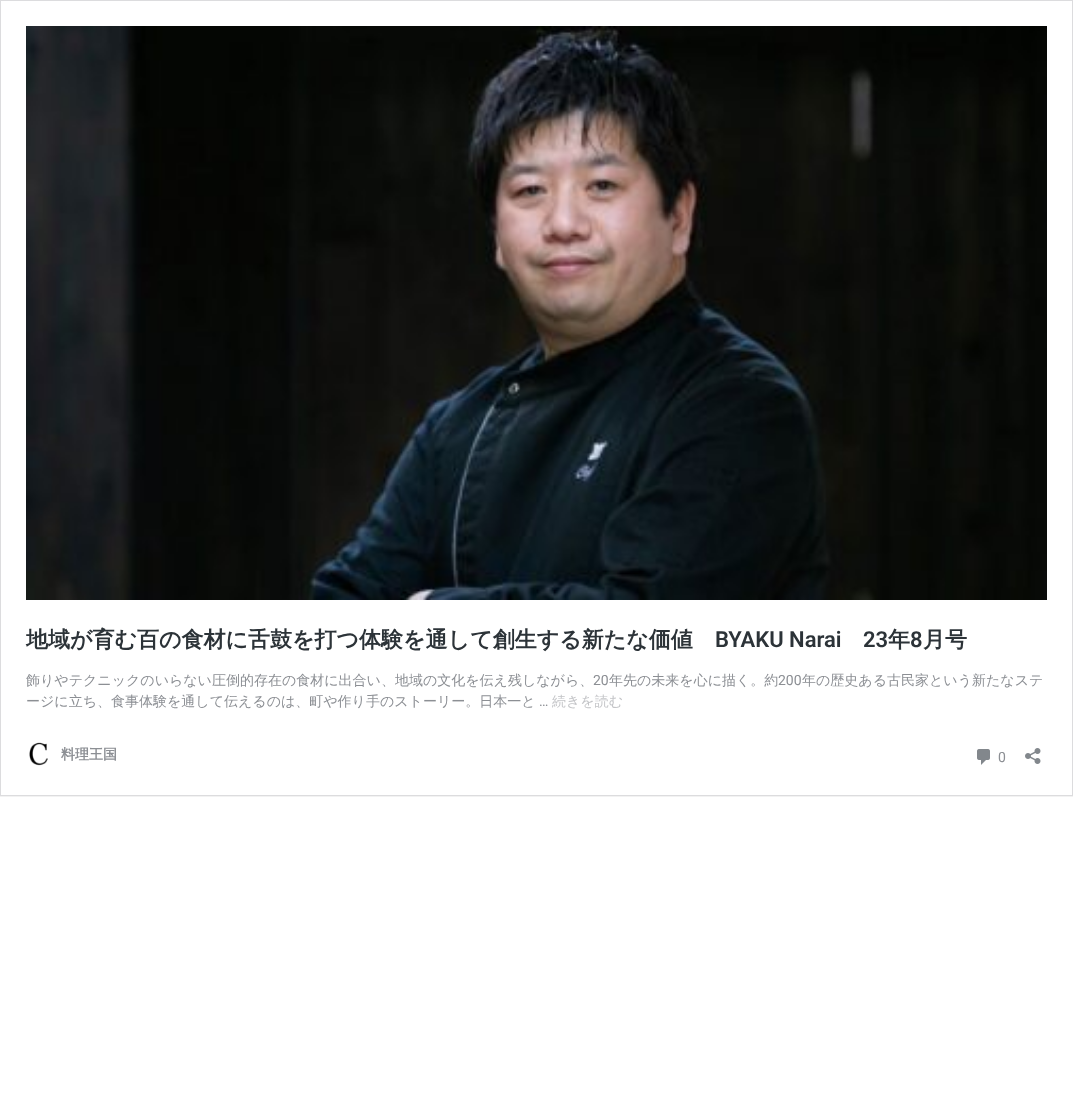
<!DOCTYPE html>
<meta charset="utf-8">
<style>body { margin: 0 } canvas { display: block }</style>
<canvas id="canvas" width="1073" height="1111"></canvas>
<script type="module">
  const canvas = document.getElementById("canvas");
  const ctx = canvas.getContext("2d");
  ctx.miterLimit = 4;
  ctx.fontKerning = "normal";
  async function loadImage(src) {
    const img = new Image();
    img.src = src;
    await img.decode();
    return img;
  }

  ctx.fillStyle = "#ffffff";
  ctx.fillRect(0, 0, 1073, 1111);
  ctx.save();
  ctx.beginPath();
  ctx.rect(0, 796, 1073, 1);
  ctx.clip();
  ctx.fillStyle = "rgba(0, 0, 0, 0.05)";
  ctx.filter = "blur(0.5px)";
  ctx.beginPath();
  ctx.rect(0, 1, 1073, 796);
  ctx.fill();
  ctx.filter = "none";
  ctx.restore();
  ctx.strokeStyle = "#dcdcde";
  ctx.strokeRect(0.5, 0.5, 1072, 795);
  ctx.drawImage(await loadImage("img1.png"), 26, 26, 1021, 574);
  ctx.font = "bold 22px WenQuanYi Zen Hei";
  ctx.fillStyle = "#2c3338";
  ctx.fillText("地域が育む百の食材に舌鼓を打つ体験を通して創生する新たな価値", 26, 647);
  ctx.font = "600 22px Roboto";
  ctx.fillText("BYAKU Narai", 715, 647);
  ctx.fillText("23", 863, 647);
  ctx.font = "bold 22px WenQuanYi Zen Hei";
  ctx.fillText("年", 888, 647);
  ctx.font = "600 22px Roboto";
  ctx.fillText("8", 910, 647);
  ctx.font = "bold 22px WenQuanYi Zen Hei";
  ctx.fillText("月号", 923, 647);
  ctx.font = "500 14px WenQuanYi Zen Hei";
  ctx.fillStyle = "#8c8f94";
  ctx.fillText("飾りやテクニックのいらない圧倒的存在の食材に出合い、地域の文化を伝え残しながら、", 26, 685);
  ctx.font = "14px Roboto";
  ctx.fillText("20", 593, 685);
  ctx.font = "500 14px WenQuanYi Zen Hei";
  ctx.fillText("年先の未来を心に描く。約", 609, 685);
  ctx.font = "14px Roboto";
  ctx.fillText("200", 778, 685);
  ctx.font = "500 14px WenQuanYi Zen Hei";
  ctx.fillText("年の歴史ある古民家という新たなステ", 802, 685);
  ctx.fillText("ージに立ち、食事体験を通して伝えるのは、町や作り手のストーリー。日本一と", 26, 706);
  ctx.font = "14px Roboto";
  ctx.fillText("…", 539, 706);
  ctx.font = "500 14px WenQuanYi Zen Hei";
  ctx.fillStyle = "#c3c4c7";
  ctx.fillText("続きを読む", 552, 706);
  ctx.drawImage(await loadImage("img2.png"), 29, 742, 19, 24);
  ctx.font = "bold 14px WenQuanYi Zen Hei";
  ctx.fillStyle = "#8c8f94";
  ctx.fillText("料理王国", 61, 759);
  ctx.drawImage(await loadImage("img3.png"), 977, 749, 13, 16);
  ctx.font = "14px Roboto";
  ctx.fillText("0", 998, 762);
  ctx.drawImage(await loadImage("img4.png"), 1025, 748, 16, 16);
</script>
